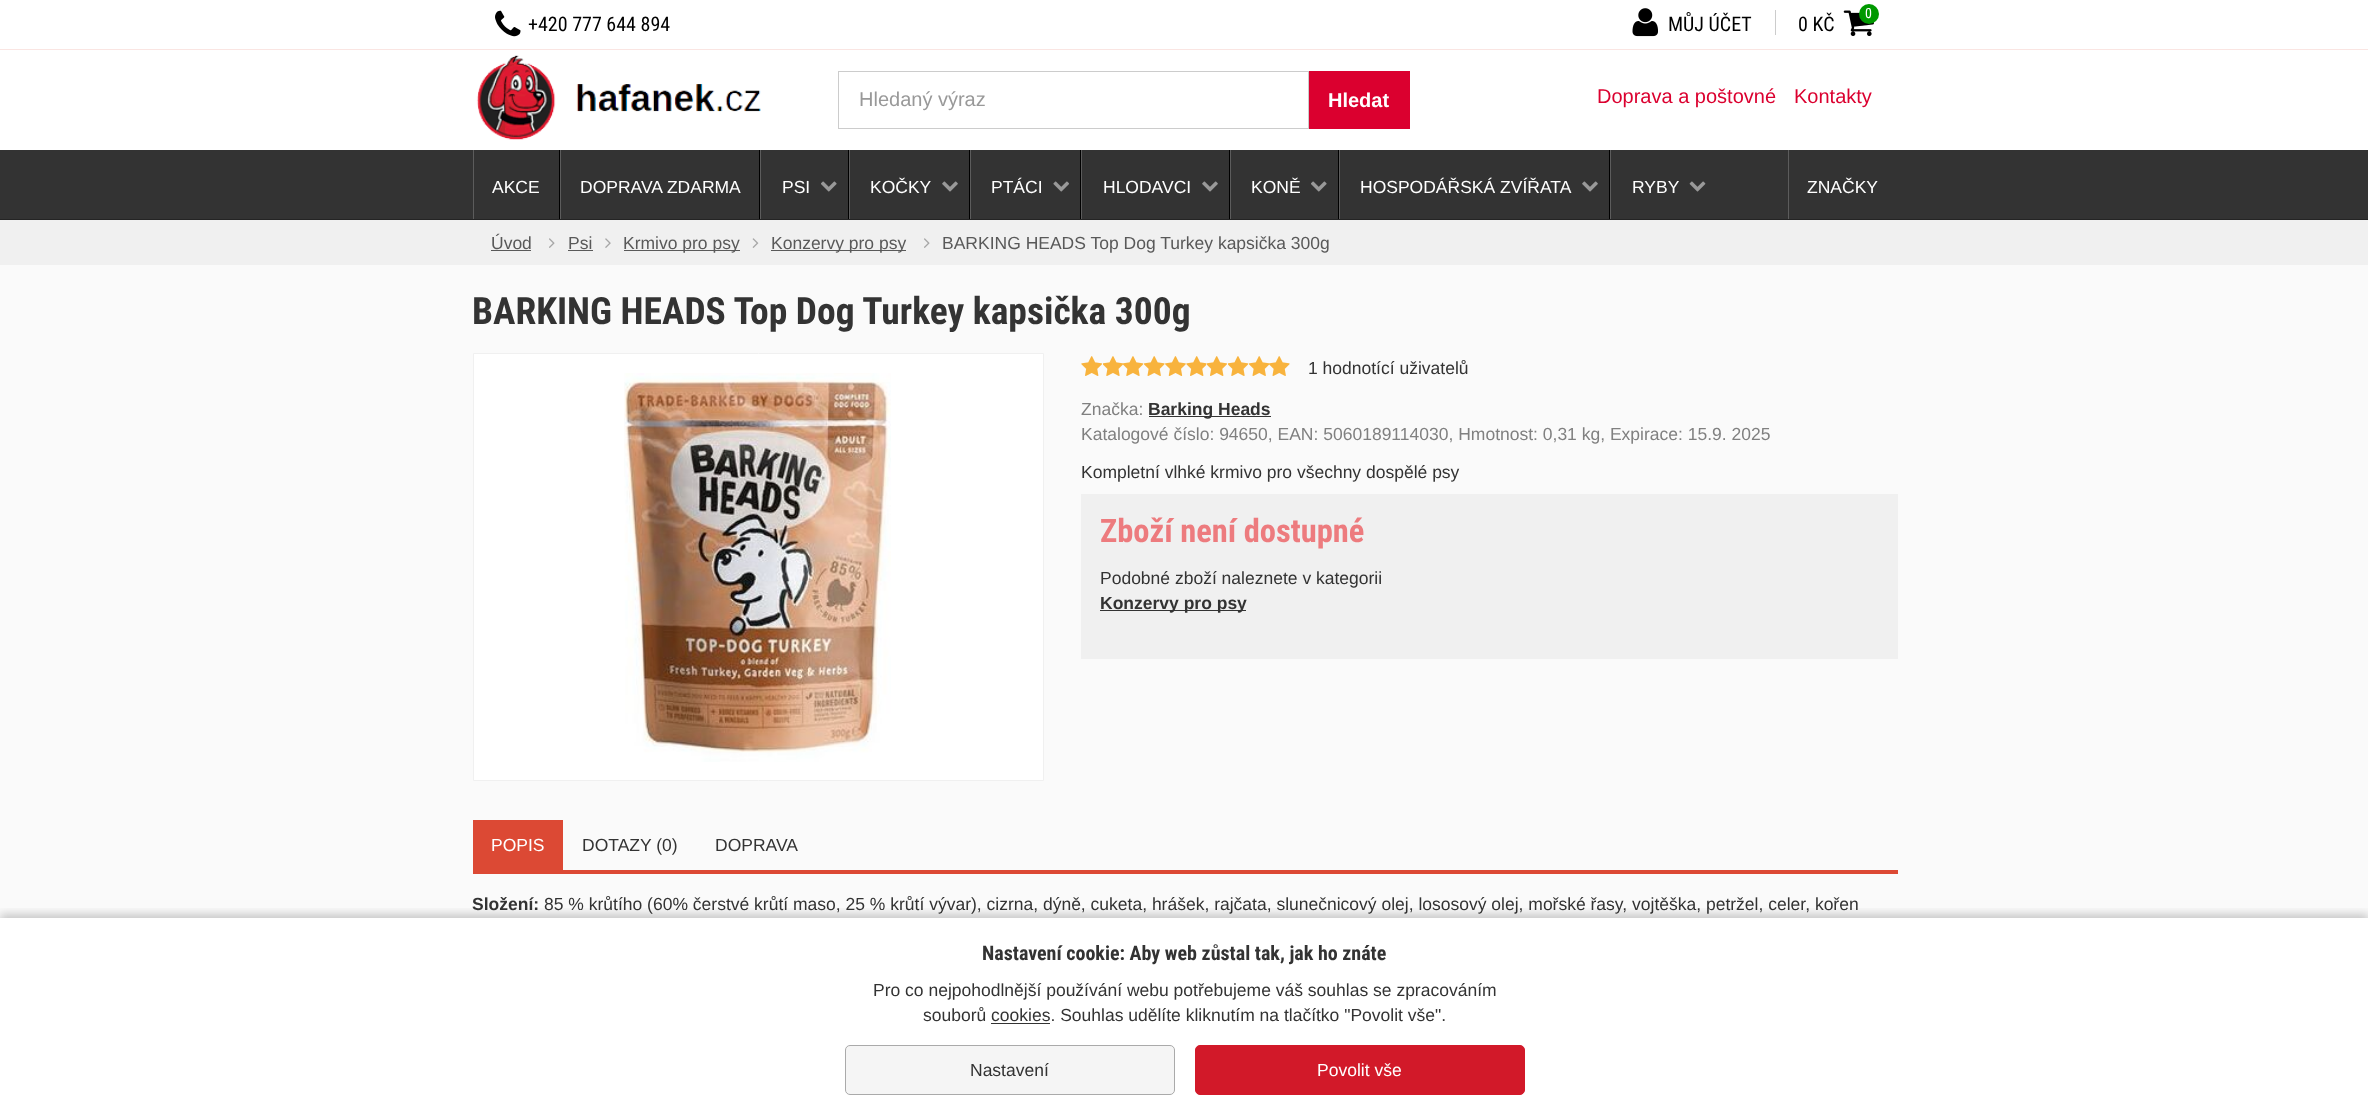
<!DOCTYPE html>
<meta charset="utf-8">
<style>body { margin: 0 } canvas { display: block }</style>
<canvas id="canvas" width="2368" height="1120"></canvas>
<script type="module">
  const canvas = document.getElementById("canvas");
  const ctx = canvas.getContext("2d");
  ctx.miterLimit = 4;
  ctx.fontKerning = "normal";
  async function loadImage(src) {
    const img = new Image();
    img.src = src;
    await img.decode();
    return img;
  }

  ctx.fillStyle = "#fafafa";
  ctx.fillRect(0, 0, 2368, 1120);
  ctx.fillStyle = "#ffffff";
  ctx.fillRect(0, 918, 2368, 202);
  ctx.fillRect(0, 0, 2368, 49);
  ctx.fillStyle = "#fae5e2";
  ctx.fillRect(0, 49, 2368, 1);
  ctx.drawImage(await loadImage("img1.png"), 495, 10, 26, 27);
  ctx.font = "20px Roboto Condensed";
  ctx.fillStyle = "#000000";
  ctx.fillText("+420 777 644 894", 528, 31);
  ctx.drawImage(await loadImage("img2.png"), 1632, 8, 26, 29);
  ctx.fillText("MŮJ ÚČET", 1668, 31);
  ctx.fillStyle = "#cccccc";
  ctx.fillRect(1775, 10, 1, 25);
  ctx.fillStyle = "#000000";
  ctx.fillText("0 KČ", 1798, 31);
  ctx.drawImage(await loadImage("img3.png"), 1843, 10, 31, 27);
  ctx.fillStyle = "#009900";
  ctx.beginPath();
  ctx.arc(1869, 14, 10, 0, Math.PI * 2);
  ctx.fill();
  ctx.font = "14px Roboto Condensed";
  ctx.fillStyle = "#ffffff";
  ctx.fillText("0", 1865, 18);
  ctx.fillRect(0, 50, 2368, 100);
  ctx.drawImage(await loadImage("img4.png"), 476, 55, 285, 85);
  ctx.strokeStyle = "#cccccc";
  ctx.strokeRect(838.5, 71.5, 470, 57);
  ctx.font = "20px Arimo";
  ctx.fillStyle = "#999999";
  ctx.fillText("Hledaný výraz", 859, 106);
  ctx.fillStyle = "#db002f";
  ctx.fillRect(1309, 71, 101, 58);
  ctx.font = "bold 20px Arimo";
  ctx.fillStyle = "#ffffff";
  ctx.fillText("Hledat", 1328, 107);
  ctx.font = "20px Arimo";
  ctx.fillStyle = "#db002f";
  ctx.fillText("Doprava a poštovné", 1597, 103);
  ctx.fillText("Kontakty", 1794, 103);
  ctx.fillStyle = "#f0f0f0";
  ctx.fillRect(0, 220, 2368, 45);
  ctx.font = "17.5px Arimo";
  ctx.fillStyle = "#595959";
  ctx.fillText("Úvod", 491, 249);
  ctx.fillRect(491, 250, 40, 1);
  ctx.drawImage(await loadImage("img5.png"), 549, 238, 6, 10);
  ctx.fillText("Psi", 568, 249);
  ctx.fillRect(568, 250, 25, 1);
  ctx.drawImage(await loadImage("img6.png"), 605, 238, 6, 10);
  ctx.fillRect(624, 250, 116, 1);
  ctx.fillText("Krmivo pro psy", 623, 249);
  ctx.drawImage(await loadImage("img7.png"), 752, 238, 7, 10);
  ctx.fillRect(771, 250, 135, 1);
  ctx.fillText("Konzervy pro psy", 771, 249);
  ctx.drawImage(await loadImage("img5.png"), 924, 238, 6, 10);
  ctx.fillText("BARKING HEADS Top Dog Turkey kapsička 300g", 942, 249);
  ctx.font = "bold 37.5px Roboto Condensed";
  ctx.fillStyle = "#333333";
  ctx.fillText("BARKING HEADS Top Dog Turkey kapsička 300g", 472, 324);
  ctx.fillStyle = "#ffffff";
  ctx.beginPath();
  ctx.rect(473.5, 353.5, 570, 427);
  ctx.fill();
  ctx.strokeStyle = "#f0f0f0";
  ctx.stroke();
  ctx.drawImage(await loadImage("img8.png"), 624, 373, 267, 389);
  ctx.drawImage(await loadImage("img9.png"), 1081, 356, 22, 20);
  ctx.drawImage(await loadImage("img10.png"), 1103, 356, 20, 20);
  ctx.drawImage(await loadImage("img11.png"), 1123, 356, 21, 20);
  ctx.drawImage(await loadImage("img12.png"), 1144, 356, 21, 20);
  ctx.drawImage(await loadImage("img13.png"), 1165, 356, 21, 20);
  ctx.drawImage(await loadImage("img14.png"), 1186, 356, 20, 20);
  ctx.drawImage(await loadImage("img9.png"), 1206, 356, 22, 20);
  ctx.drawImage(await loadImage("img11.png"), 1228, 356, 21, 20);
  ctx.drawImage(await loadImage("img15.png"), 1249, 356, 20, 20);
  ctx.drawImage(await loadImage("img12.png"), 1269, 356, 21, 20);
  ctx.font = "17.5px Arimo";
  ctx.fillStyle = "#333333";
  ctx.fillText("1 hodnotící uživatelů", 1308, 374);
  ctx.fillStyle = "#808080";
  ctx.fillText("Značka:", 1081, 415);
  ctx.fillStyle = "#333333";
  ctx.fillRect(1149, 416, 122, 1);
  ctx.font = "bold 17.5px Arimo";
  ctx.fillText("Barking Heads", 1148, 415);
  ctx.font = "17.5px Arimo";
  ctx.fillStyle = "#808080";
  ctx.fillText("Katalogové číslo: 94650, EAN: 5060189114030, Hmotnost: 0,31 kg, Expirace: 15.9. 2025", 1081, 440);
  ctx.fillStyle = "#333333";
  ctx.fillText("Kompletní vlhké krmivo pro všechny dospělé psy", 1081, 478);
  ctx.fillStyle = "#f0f0f0";
  ctx.fillRect(1081, 494, 817, 165);
  ctx.font = "bold 32.5px Roboto Condensed";
  ctx.fillStyle = "#ed7b7e";
  ctx.fillText("Zboží není dostupné", 1100, 542);
  ctx.font = "17.5px Arimo";
  ctx.fillStyle = "#333333";
  ctx.fillText("Podobné zboží naleznete v kategorii", 1100, 584);
  ctx.fillRect(1100, 610, 146, 1);
  ctx.font = "bold 17.5px Arimo";
  ctx.fillText("Konzervy pro psy", 1100, 609);
  ctx.fillStyle = "#dc4934";
  ctx.fillRect(473, 870, 1425, 4);
  ctx.fillRect(473, 820, 90, 50);
  ctx.font = "17.5px Arimo";
  ctx.fillStyle = "#ffffff";
  ctx.fillText("POPIS", 491, 851);
  ctx.fillStyle = "#333333";
  ctx.fillText("DOTAZY (0)", 582, 851);
  ctx.fillText("DOPRAVA", 715, 851);
  ctx.font = "bold 17.5px Arimo";
  ctx.fillText("Složení:", 472, 910);
  ctx.font = "17.5px Arimo";
  ctx.fillText("85 % krůtího (60% čerstvé krůtí maso, 25 % krůtí vývar), cizrna, dýně, cuketa, hrášek, rajčata, slunečnicový olej, lososový olej, mořské řasy, vojtěška, petržel, celer, kořen", 544, 910);
  ctx.save();
  ctx.beginPath();
  ctx.rect(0, 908, 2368, 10);
  ctx.clip();
  ctx.fillStyle = "rgba(0, 0, 0, 0.2)";
  ctx.filter = "blur(5px)";
  ctx.beginPath();
  ctx.rect(0, 914, 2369, 202);
  ctx.fill();
  ctx.filter = "none";
  ctx.restore();
  ctx.font = "bold 20px Roboto Condensed";
  ctx.fillText("Nastavení cookie: Aby web zůstal tak, jak ho znáte", 982, 960);
  ctx.font = "17.5px Arimo";
  ctx.fillText("Pro co nejpohodlnější používání webu potřebujeme váš souhlas se zpracováním", 873, 996);
  ctx.fillText("souborů cookies. Souhlas udělíte kliknutím na tlačítko \"Povolit vše\".", 923, 1021);
  ctx.fillRect(991, 1023, 59, 1);
  ctx.fillStyle = "#f5f5f5";
  ctx.beginPath();
  ctx.roundRect(845.5, 1045.5, 329, 49, 4.5);
  ctx.fill();
  ctx.strokeStyle = "#aaaaaa";
  ctx.stroke();
  ctx.fillStyle = "#333333";
  ctx.fillText("Nastavení", 970, 1076);
  ctx.fillStyle = "#d21929";
  ctx.beginPath();
  ctx.roundRect(1195.5, 1045.5, 329, 49, 4.5);
  ctx.fill();
  ctx.strokeStyle = "#d21929";
  ctx.stroke();
  ctx.fillStyle = "#ffffff";
  ctx.fillText("Povolit vše", 1317, 1076);
  ctx.fillStyle = "#333333";
  ctx.fillRect(0, 150, 2368, 69);
  ctx.fillStyle = "#242424";
  ctx.fillRect(0, 219, 2368, 1);
  ctx.fillStyle = "#000000";
  ctx.fillRect(559, 150, 1, 69);
  ctx.fillStyle = "#5c5c5c";
  ctx.fillRect(473, 150, 1, 69);
  ctx.fillStyle = "#ffffff";
  ctx.fillText("AKCE", 492, 193);
  ctx.fillStyle = "#000000";
  ctx.fillRect(759, 150, 1, 69);
  ctx.fillStyle = "#5c5c5c";
  ctx.fillRect(560, 150, 1, 69);
  ctx.fillStyle = "#ffffff";
  ctx.fillText("DOPRAVA ZDARMA", 580, 193);
  ctx.fillStyle = "#000000";
  ctx.fillRect(848, 150, 1, 69);
  ctx.fillStyle = "#5c5c5c";
  ctx.fillRect(760, 150, 1, 69);
  ctx.fillStyle = "#ffffff";
  ctx.fillText("PSI", 782, 193);
  ctx.drawImage(await loadImage("img16.png"), 821, 181, 16, 11);
  ctx.fillStyle = "#000000";
  ctx.fillRect(969, 150, 1, 69);
  ctx.fillStyle = "#5c5c5c";
  ctx.fillRect(849, 150, 1, 69);
  ctx.fillStyle = "#ffffff";
  ctx.fillText("KOČKY", 870, 193);
  ctx.drawImage(await loadImage("img17.png"), 942, 181, 16, 11);
  ctx.fillStyle = "#000000";
  ctx.fillRect(1080, 150, 1, 69);
  ctx.fillStyle = "#5c5c5c";
  ctx.fillRect(970, 150, 1, 69);
  ctx.fillStyle = "#ffffff";
  ctx.fillText("PTÁCI", 991, 193);
  ctx.drawImage(await loadImage("img18.png"), 1053, 181, 16, 11);
  ctx.fillStyle = "#000000";
  ctx.fillRect(1229, 150, 1, 69);
  ctx.fillStyle = "#5c5c5c";
  ctx.fillRect(1081, 150, 1, 69);
  ctx.fillStyle = "#ffffff";
  ctx.fillText("HLODAVCI", 1103, 193);
  ctx.drawImage(await loadImage("img17.png"), 1202, 181, 16, 11);
  ctx.fillStyle = "#000000";
  ctx.fillRect(1338, 150, 1, 69);
  ctx.fillStyle = "#5c5c5c";
  ctx.fillRect(1230, 150, 1, 69);
  ctx.fillStyle = "#ffffff";
  ctx.fillText("KONĚ", 1251, 193);
  ctx.drawImage(await loadImage("img16.png"), 1311, 181, 16, 11);
  ctx.fillStyle = "#000000";
  ctx.fillRect(1609, 150, 1, 69);
  ctx.fillStyle = "#5c5c5c";
  ctx.fillRect(1339, 150, 1, 69);
  ctx.fillStyle = "#ffffff";
  ctx.fillText("HOSPODÁŘSKÁ ZVÍŘATA", 1360, 193);
  ctx.drawImage(await loadImage("img17.png"), 1582, 181, 16, 11);
  ctx.fillStyle = "#5c5c5c";
  ctx.fillRect(1610, 150, 1, 69);
  ctx.fillStyle = "#ffffff";
  ctx.fillText("RYBY", 1632, 193);
  ctx.drawImage(await loadImage("img19.png"), 1689, 181, 17, 11);
  ctx.fillStyle = "#5c5c5c";
  ctx.fillRect(1788, 150, 1, 69);
  ctx.fillStyle = "#ffffff";
  ctx.fillText("ZNAČKY", 1807, 193);
</script>
